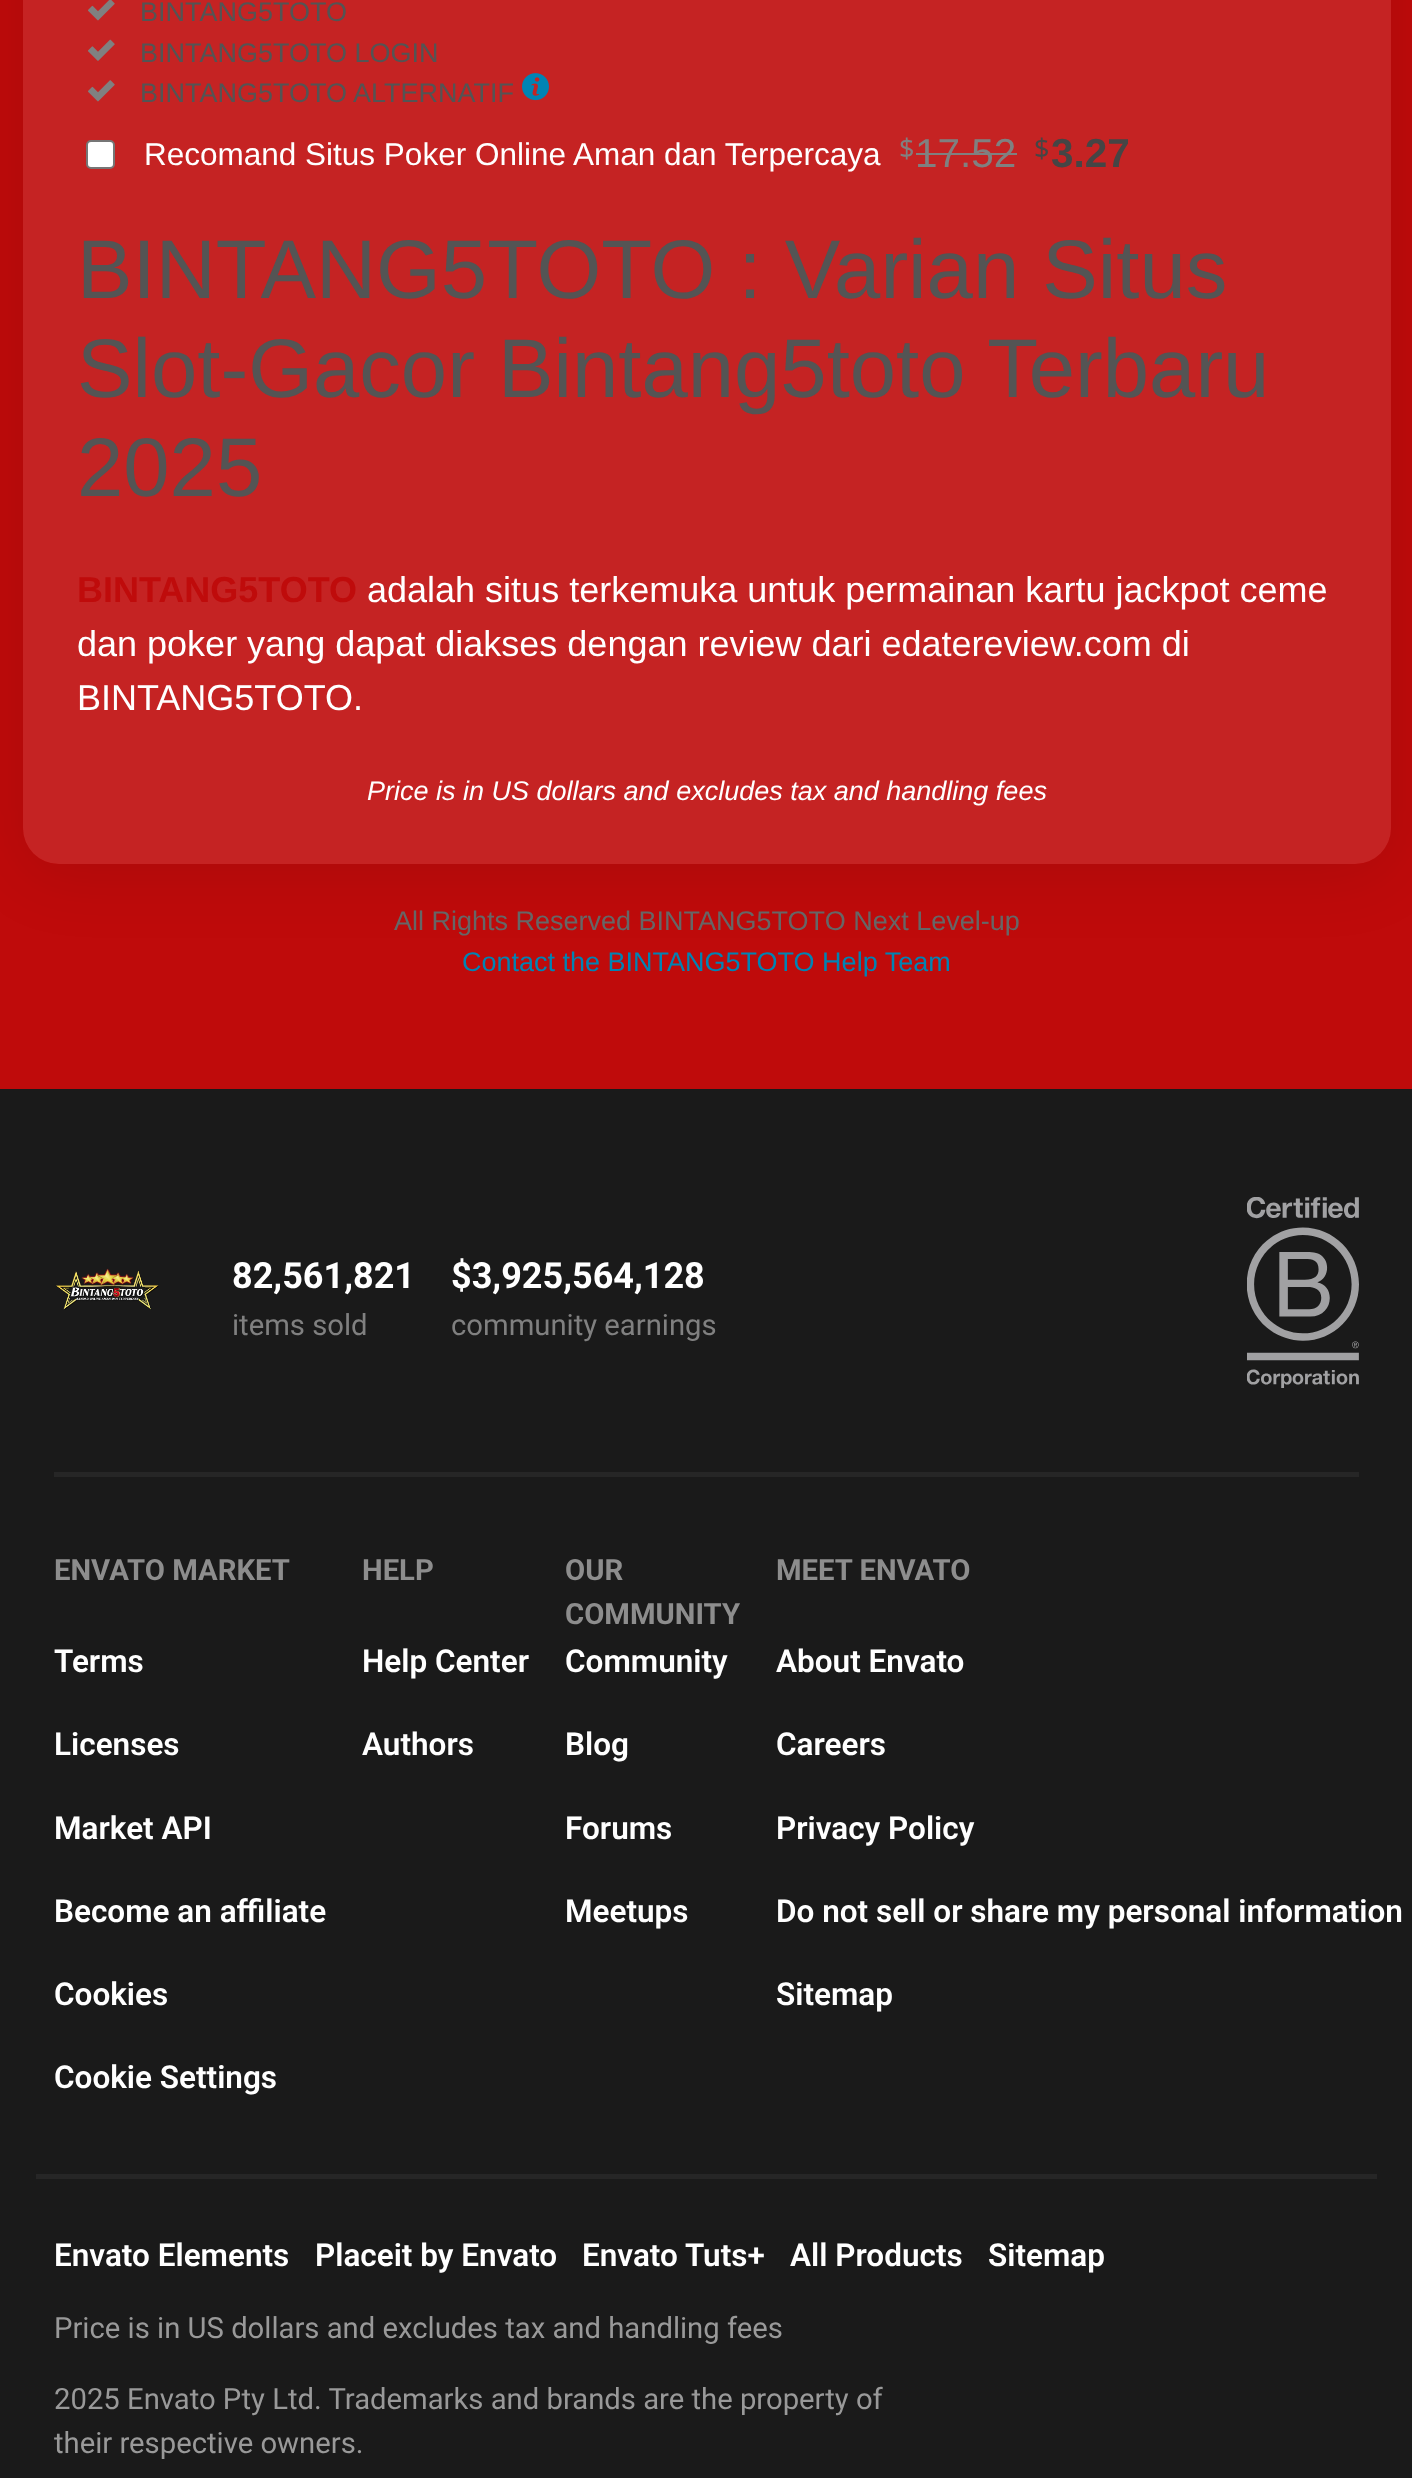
<!DOCTYPE html>
<meta charset="utf-8">
<style>body { margin: 0 } canvas { display: block }</style>
<canvas id="canvas" width="1412" height="2478"></canvas>
<script type="module">
  const canvas = document.getElementById("canvas");
  const ctx = canvas.getContext("2d");
  ctx.miterLimit = 4;
  ctx.fontKerning = "normal";
  async function loadImage(src) {
    const img = new Image();
    img.src = src;
    await img.decode();
    return img;
  }

  ctx.fillStyle = "#bf0b0b";
  ctx.fillRect(0, 0, 1412, 2478);
  ctx.save();
  ctx.beginPath();
  ctx.moveTo(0, 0);
  ctx.lineTo(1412, 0);
  ctx.lineTo(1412, 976);
  ctx.lineTo(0, 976);
  ctx.closePath();
  ctx.moveTo(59, -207);
  ctx.lineTo(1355, -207);
  ctx.bezierCurveTo(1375, -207, 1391, -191, 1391, -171);
  ctx.lineTo(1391, 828);
  ctx.bezierCurveTo(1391, 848, 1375, 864, 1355, 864);
  ctx.lineTo(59, 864);
  ctx.bezierCurveTo(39, 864, 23, 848, 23, 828);
  ctx.lineTo(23, -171);
  ctx.bezierCurveTo(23, -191, 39, -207, 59, -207);
  ctx.closePath();
  ctx.clip("evenodd");
  ctx.fillStyle = "rgba(0, 0, 0, 0.1)";
  ctx.filter = "blur(34px)";
  ctx.beginPath();
  ctx.roundRect(23, -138, 1368, 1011, 36);
  ctx.fill();
  ctx.filter = "none";
  ctx.restore();
  ctx.fillStyle = "rgba(255, 255, 255, 0.1)";
  ctx.beginPath();
  ctx.roundRect(23, -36, 1368, 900, 36);
  ctx.fill();
  ctx.drawImage(await loadImage("img1.png"), 88, 0, 27, 21);
  ctx.font = "27px Liberation Sans";
  ctx.fillStyle = "#545454";
  ctx.fillText("BINTANG5TOTO", 140, 21);
  ctx.drawImage(await loadImage("img2.png"), 88, 39, 27, 22);
  ctx.fillText("BINTANG5TOTO LOGIN", 140, 62);
  ctx.drawImage(await loadImage("img3.png"), 88, 80, 27, 22);
  ctx.fillText("BINTANG5TOTO ALTERNATIF", 140, 102);
  ctx.drawImage(await loadImage("img4.png"), 522, 73, 27, 28);
  ctx.fillStyle = "#ffffff";
  ctx.beginPath();
  ctx.roundRect(87, 141, 27, 27, 4);
  ctx.fill();
  ctx.strokeStyle = "#767676";
  ctx.lineWidth = 2;
  ctx.stroke();
  ctx.font = "31.5px Liberation Sans";
  ctx.fillText("Recomand Situs Poker Online Aman dan Terpercaya", 144, 165);
  ctx.font = "27px Noto Sans";
  ctx.fillStyle = "#808080";
  ctx.fillText("$", 899, 158);
  ctx.font = "40.5px Liberation Sans";
  ctx.fillText("17.52", 915, 167);
  ctx.fillRect(916, 153, 101, 2);
  ctx.font = "27px Noto Sans";
  ctx.fillStyle = "#454545";
  ctx.fillText("$", 1034, 158);
  ctx.font = "bold 40.5px Liberation Sans";
  ctx.fillText("3.27", 1051, 167);
  ctx.font = "83.25px Liberation Sans";
  ctx.fillStyle = "#545454";
  ctx.fillText("BINTANG5TOTO : Varian Situs", 77, 298);
  ctx.fillText("Slot-Gacor Bintang5toto Terbaru", 77, 397);
  ctx.fillText("2025", 77, 496);
  ctx.font = "bold 36px Liberation Sans";
  ctx.fillStyle = "#bf0b0b";
  ctx.fillText("BINTANG5TOTO", 77, 602);
  ctx.font = "36px Liberation Sans";
  ctx.fillStyle = "#ffffff";
  ctx.fillText("adalah situs terkemuka untuk permainan kartu jackpot ceme", 367, 602);
  ctx.fillText("dan poker yang dapat diakses dengan review dari edatereview.com di", 77, 656);
  ctx.fillText("BINTANG5TOTO.", 77, 710);
  ctx.font = "italic 27px Liberation Sans";
  ctx.fillText("Price is in US dollars and excludes tax and handling fees", 367, 800);
  ctx.font = "27px Liberation Sans";
  ctx.fillStyle = "#666666";
  ctx.fillText("All Rights Reserved BINTANG5TOTO Next Level-up", 394, 930);
  ctx.fillStyle = "#0084b4";
  ctx.fillText("Contact the BINTANG5TOTO Help Team", 462, 971);
  ctx.fillStyle = "#1a1a1a";
  ctx.fillRect(0, 1089, 1412, 1389);
  ctx.drawImage(await loadImage("img5.png"), 56, 1268, 103, 42);
  ctx.font = "bold 36px Roboto";
  ctx.fillStyle = "#ffffff";
  ctx.fillText("82,561,821", 232, 1288);
  ctx.font = "29.25px Roboto";
  ctx.fillStyle = "#808080";
  ctx.fillText("items sold", 232, 1335);
  ctx.font = "bold 36px Roboto";
  ctx.fillStyle = "#ffffff";
  ctx.fillText("$3,925,564,128", 451, 1288);
  ctx.font = "29.25px Roboto";
  ctx.fillStyle = "#808080";
  ctx.fillText("community earnings", 451, 1335);
  ctx.drawImage(await loadImage("img6.png"), 1247, 1197, 112, 191);
  ctx.fillStyle = "#262626";
  ctx.fillRect(54, 1472, 1305, 5);
  ctx.font = "bold 29.25px Roboto";
  ctx.fillStyle = "#8d8d8d";
  ctx.fillText("ENVATO MARKET", 54, 1580);
  ctx.font = "600 31.5px Roboto";
  ctx.fillStyle = "#ffffff";
  ctx.fillText("Terms", 54, 1672);
  ctx.fillText("Licenses", 54, 1755);
  ctx.fillText("Market API", 54, 1839);
  ctx.fillText("Become an affiliate", 54, 1922);
  ctx.fillText("Cookies", 54, 2005);
  ctx.fillText("Cookie Settings", 54, 2088);
  ctx.font = "bold 29.25px Roboto";
  ctx.fillStyle = "#8d8d8d";
  ctx.fillText("HELP", 362, 1580);
  ctx.font = "600 31.5px Roboto";
  ctx.fillStyle = "#ffffff";
  ctx.fillText("Help Center", 362, 1672);
  ctx.fillText("Authors", 362, 1755);
  ctx.font = "bold 29.25px Roboto";
  ctx.fillStyle = "#8d8d8d";
  ctx.fillText("OUR", 565, 1580);
  ctx.fillText("COMMUNITY", 565, 1624);
  ctx.font = "600 31.5px Roboto";
  ctx.fillStyle = "#ffffff";
  ctx.fillText("Community", 565, 1672);
  ctx.fillText("Blog", 565, 1755);
  ctx.fillText("Forums", 565, 1839);
  ctx.fillText("Meetups", 565, 1922);
  ctx.font = "bold 29.25px Roboto";
  ctx.fillStyle = "#8d8d8d";
  ctx.fillText("MEET ENVATO", 776, 1580);
  ctx.font = "600 31.5px Roboto";
  ctx.fillStyle = "#ffffff";
  ctx.fillText("About Envato", 776, 1672);
  ctx.fillText("Careers", 776, 1755);
  ctx.fillText("Privacy Policy", 776, 1839);
  ctx.fillText("Do not sell or share my personal information", 776, 1922);
  ctx.fillText("Sitemap", 776, 2005);
  ctx.fillStyle = "#262626";
  ctx.fillRect(36, 2174, 1341, 5);
  ctx.fillStyle = "#ffffff";
  ctx.fillText("Envato Elements", 54, 2266);
  ctx.fillText("Placeit by Envato", 315, 2266);
  ctx.fillText("Envato Tuts+", 582, 2266);
  ctx.fillText("All Products", 790, 2266);
  ctx.fillText("Sitemap", 988, 2266);
  ctx.font = "29.25px Roboto";
  ctx.fillStyle = "#999999";
  ctx.fillText("Price is in US dollars and excludes tax and handling fees", 54, 2338);
  ctx.fillText("2025 Envato Pty Ltd. Trademarks and brands are the property of", 54, 2409);
  ctx.fillText("their respective owners.", 54, 2453);
</script>
